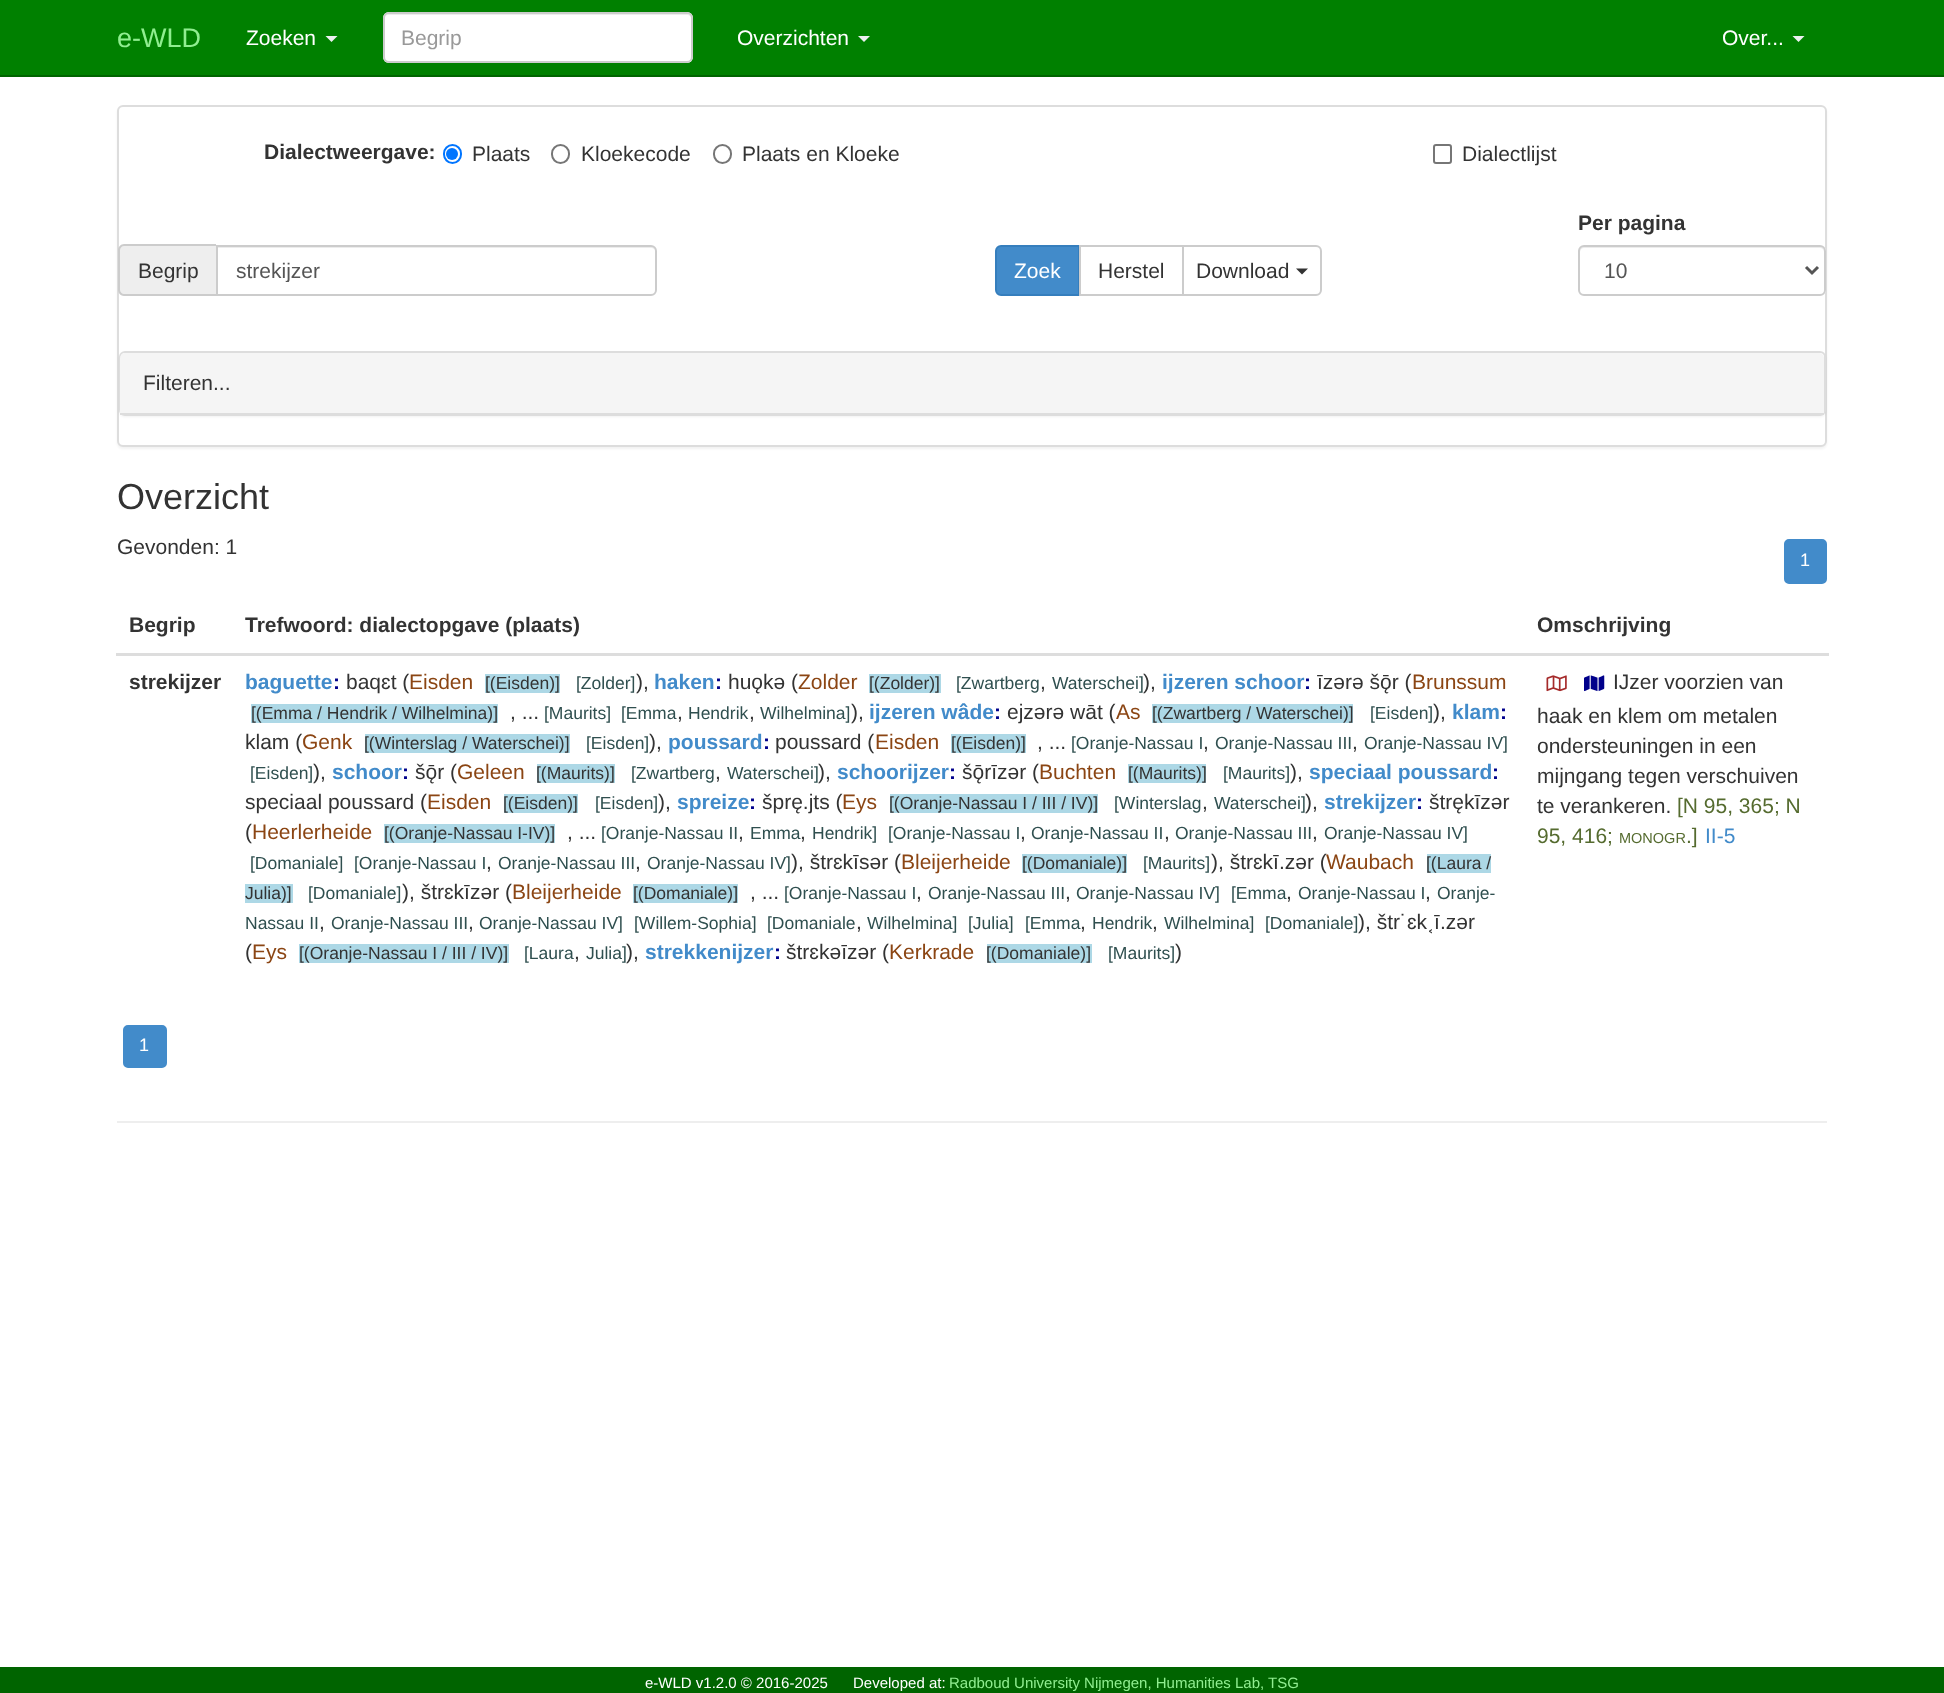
<!DOCTYPE html>
<meta charset="utf-8">
<style>body { margin: 0 } canvas { display: block }</style>
<canvas id="canvas" width="1944" height="1693"></canvas>
<script type="module">
  const canvas = document.getElementById("canvas");
  const ctx = canvas.getContext("2d");
  ctx.miterLimit = 4;
  ctx.fontKerning = "normal";
  async function loadImage(src) {
    const img = new Image();
    img.src = src;
    await img.decode();
    return img;
  }

  ctx.fillStyle = "#ffffff";
  ctx.fillRect(0, 0, 1944, 1693);
  ctx.fillStyle = "#008000";
  ctx.fillRect(0, 0, 1944, 75);
  ctx.fillStyle = "#006400";
  ctx.fillRect(0, 75, 1944, 2);
  ctx.font = "27px Liberation Sans";
  ctx.fillStyle = "#90ee90";
  ctx.fillText("e-WLD", 117, 47);
  ctx.font = "21px Liberation Sans";
  ctx.fillStyle = "#ffffff";
  ctx.fillText("Zoeken", 246, 45);
  ctx.fillStyle = "#ecf0f1";
  ctx.beginPath();
  ctx.moveTo(325.5, 36);
  ctx.lineTo(337.5, 36);
  ctx.lineTo(331.5, 42);
  ctx.closePath();
  ctx.fill();
  ctx.fillStyle = "#ffffff";
  ctx.beginPath();
  ctx.roundRect(383, 12, 310, 51, 6);
  ctx.fill();
  ctx.fillStyle = "#ececec";
  ctx.beginPath();
  ctx.moveTo(388, 15);
  ctx.lineTo(687, 15);
  ctx.bezierCurveTo(689, 15, 692, 17, 692, 20);
  ctx.bezierCurveTo(692, 17, 690, 14, 687, 14);
  ctx.lineTo(389, 14);
  ctx.bezierCurveTo(386, 14, 384, 17, 384, 20);
  ctx.bezierCurveTo(384, 17, 386, 15, 388, 15);
  ctx.closePath();
  ctx.fill();
  ctx.beginPath();
  ctx.roundRect(384, 13, 308, 49, 5);
  ctx.strokeStyle = "#cccccc";
  ctx.lineWidth = 2;
  ctx.stroke();
  ctx.fillStyle = "#999999";
  ctx.fillText("Begrip", 401, 45);
  ctx.fillStyle = "#ffffff";
  ctx.fillText("Overzichten", 737, 45);
  ctx.fillStyle = "#ecf0f1";
  ctx.beginPath();
  ctx.moveTo(858, 36);
  ctx.lineTo(870, 36);
  ctx.lineTo(864, 42);
  ctx.closePath();
  ctx.fill();
  ctx.fillStyle = "#ffffff";
  ctx.fillText("Over...", 1722, 45);
  ctx.fillStyle = "#ecf0f1";
  ctx.beginPath();
  ctx.moveTo(1792.5, 36);
  ctx.lineTo(1804.5, 36);
  ctx.lineTo(1798.5, 42);
  ctx.closePath();
  ctx.fill();
  ctx.fillStyle = "rgba(0, 0, 0, 0.05)";
  ctx.filter = "blur(1px)";
  ctx.beginPath();
  ctx.roundRect(117, 107, 1710, 342, 6);
  ctx.fill();
  ctx.filter = "none";
  ctx.fillStyle = "#ffffff";
  ctx.beginPath();
  ctx.roundRect(118, 106, 1708, 340, 5);
  ctx.fill();
  ctx.strokeStyle = "#dddddd";
  ctx.stroke();
  ctx.font = "bold 21px Liberation Sans";
  ctx.fillStyle = "#333333";
  ctx.fillText("Dialectweergave:", 264, 159);
  ctx.beginPath();
  ctx.roundRect(444, 145, 17, 18, 8.5);
  ctx.strokeStyle = "#0075ff";
  ctx.stroke();
  ctx.fillStyle = "#0075ff";
  ctx.beginPath();
  ctx.arc(452, 154, 6, 0, Math.PI * 2);
  ctx.fill();
  ctx.font = "21px Liberation Sans";
  ctx.fillStyle = "#333333";
  ctx.fillText("Plaats", 472, 161);
  ctx.beginPath();
  ctx.roundRect(552, 145, 17, 18, 8.5);
  ctx.strokeStyle = "#767676";
  ctx.stroke();
  ctx.fillText("Kloekecode", 581, 161);
  ctx.beginPath();
  ctx.roundRect(714, 145, 17, 18, 8.5);
  ctx.stroke();
  ctx.fillText("Plaats en Kloeke", 742, 161);
  ctx.beginPath();
  ctx.roundRect(1434, 145, 17, 18, 2);
  ctx.stroke();
  ctx.fillText("Dialectlijst", 1462, 161);
  ctx.fillStyle = "#eeeeee";
  ctx.beginPath();
  ctx.roundRect(119, 245, 97, 51, [6, 0, 0, 6]);
  ctx.fill();
  ctx.fillStyle = "#cccccc";
  ctx.beginPath();
  ctx.moveTo(124, 244);
  ctx.lineTo(216, 244);
  ctx.lineTo(216, 296);
  ctx.lineTo(124, 296);
  ctx.bezierCurveTo(121, 296, 118, 293, 118, 290);
  ctx.lineTo(118, 250);
  ctx.bezierCurveTo(118, 247, 121, 244, 124, 244);
  ctx.closePath();
  ctx.moveTo(124, 246);
  ctx.lineTo(216, 246);
  ctx.lineTo(216, 294);
  ctx.lineTo(124, 294);
  ctx.bezierCurveTo(122, 294, 120, 292, 120, 290);
  ctx.lineTo(120, 250);
  ctx.bezierCurveTo(120, 248, 122, 246, 124, 246);
  ctx.closePath();
  ctx.fill("evenodd");
  ctx.fillStyle = "#333333";
  ctx.fillText("Begrip", 138, 278);
  ctx.fillStyle = "#ececec";
  ctx.beginPath();
  ctx.moveTo(218, 248);
  ctx.lineTo(651, 248);
  ctx.bezierCurveTo(653, 248, 656, 250, 656, 252);
  ctx.bezierCurveTo(656, 249, 654, 246, 651, 246);
  ctx.lineTo(218, 246);
  ctx.closePath();
  ctx.fill();
  ctx.beginPath();
  ctx.roundRect(217, 246, 439, 49, [0, 5, 5, 0]);
  ctx.strokeStyle = "#cccccc";
  ctx.stroke();
  ctx.save();
  ctx.beginPath();
  ctx.rect(236, 258, 402, 24);
  ctx.clip();
  ctx.fillStyle = "#555555";
  ctx.fillText("strekijzer", 236, 278);
  ctx.restore();
  ctx.fillStyle = "#428bca";
  ctx.beginPath();
  ctx.roundRect(996, 246, 83, 49, [5, 0, 0, 5]);
  ctx.fill();
  ctx.strokeStyle = "#357ebd";
  ctx.stroke();
  ctx.fillStyle = "#ffffff";
  ctx.fillText("Zoek", 1014, 278);
  ctx.strokeStyle = "#cccccc";
  ctx.strokeRect(1080, 246, 103, 49);
  ctx.fillStyle = "#333333";
  ctx.fillText("Herstel", 1098, 278);
  ctx.fillStyle = "#ffffff";
  ctx.beginPath();
  ctx.roundRect(1183, 246, 138, 49, [0, 5, 5, 0]);
  ctx.fill();
  ctx.stroke();
  ctx.fillStyle = "#333333";
  ctx.fillText("Download", 1196, 278);
  ctx.beginPath();
  ctx.moveTo(1296, 268.5);
  ctx.lineTo(1308, 268.5);
  ctx.lineTo(1302, 274.5);
  ctx.closePath();
  ctx.fill();
  ctx.font = "bold 21px Liberation Sans";
  ctx.fillText("Per pagina", 1578, 230);
  ctx.fillStyle = "#ffffff";
  ctx.beginPath();
  ctx.roundRect(1578, 245, 248, 51, 6);
  ctx.fill();
  ctx.fillStyle = "#ececec";
  ctx.beginPath();
  ctx.moveTo(1584, 248);
  ctx.lineTo(1820, 248);
  ctx.bezierCurveTo(1822, 248, 1824, 250, 1824, 252);
  ctx.lineTo(1824, 251);
  ctx.bezierCurveTo(1824, 248, 1822, 246, 1819, 246);
  ctx.lineTo(1585, 246);
  ctx.bezierCurveTo(1582, 246, 1580, 248, 1580, 251);
  ctx.lineTo(1580, 252);
  ctx.bezierCurveTo(1580, 250, 1582, 248, 1584, 248);
  ctx.closePath();
  ctx.fill();
  ctx.beginPath();
  ctx.roundRect(1579, 246, 246, 49, 5);
  ctx.stroke();
  ctx.beginPath();
  ctx.moveTo(1806, 267);
  ctx.lineTo(1812, 273);
  ctx.lineTo(1818, 267);
  ctx.strokeStyle = "#555555";
  ctx.lineWidth = 3;
  ctx.stroke();
  ctx.font = "21px Liberation Sans";
  ctx.fillStyle = "#555555";
  ctx.fillText("10", 1604, 278);
  ctx.fillStyle = "rgba(0, 0, 0, 0.05)";
  ctx.filter = "blur(1px)";
  ctx.beginPath();
  ctx.roundRect(119, 353, 1707, 64, 6);
  ctx.fill();
  ctx.filter = "none";
  ctx.fillStyle = "#ffffff";
  ctx.beginPath();
  ctx.roundRect(120, 352, 1705, 63, 5);
  ctx.fill();
  ctx.strokeStyle = "#dddddd";
  ctx.lineWidth = 2;
  ctx.stroke();
  ctx.fillStyle = "#f5f5f5";
  ctx.beginPath();
  ctx.roundRect(120, 353, 1704, 61, [5, 5, 0, 0]);
  ctx.fill();
  ctx.fillStyle = "#dddddd";
  ctx.fillRect(120, 413, 1704, 2);
  ctx.fillStyle = "#333333";
  ctx.fillText("Filteren...", 143, 390);
  ctx.font = "36px Liberation Sans";
  ctx.fillText("Overzicht", 117, 509);
  ctx.font = "21px Liberation Sans";
  ctx.fillText("Gevonden: 1", 117, 554);
  ctx.fillStyle = "#428bca";
  ctx.beginPath();
  ctx.roundRect(1785, 540, 41, 43, 4);
  ctx.fill();
  ctx.strokeStyle = "#428bca";
  ctx.stroke();
  ctx.font = "18px Liberation Sans";
  ctx.fillStyle = "#ffffff";
  ctx.fillText("1", 1800, 566);
  ctx.font = "bold 21px Liberation Sans";
  ctx.fillStyle = "#333333";
  ctx.fillText("Begrip", 129, 632);
  ctx.fillText("Trefwoord: dialectopgave (plaats)", 245, 632);
  ctx.fillStyle = "#dddddd";
  ctx.fillRect(116, 653, 1713, 3);
  ctx.fillStyle = "#333333";
  ctx.fillText("Omschrijving", 1537, 632);
  ctx.fillText("strekijzer", 129, 689);
  ctx.fillStyle = "#428bca";
  ctx.fillText("baguette", 245, 689);
  ctx.fillStyle = "#00008b";
  ctx.fillText(":", 333, 689);
  ctx.font = "21px Liberation Sans";
  ctx.fillStyle = "#333333";
  ctx.fillText("baqɛt (", 346, 689);
  ctx.fillStyle = "#8b4513";
  ctx.fillText("Eisden", 409, 689);
  ctx.fillStyle = "#add8e6";
  ctx.fillRect(485, 674, 75, 19);
  ctx.font = "17.5px Liberation Sans";
  ctx.fillStyle = "#333333";
  ctx.fillText("[(Eisden)]", 485, 689);
  ctx.fillStyle = "#2f4f4f";
  ctx.fillText("[Zolder]", 576, 689);
  ctx.font = "21px Liberation Sans";
  ctx.fillStyle = "#333333";
  ctx.fillText("),", 636, 689);
  ctx.font = "bold 21px Liberation Sans";
  ctx.fillStyle = "#428bca";
  ctx.fillText("haken", 654, 689);
  ctx.fillStyle = "#00008b";
  ctx.fillText(":", 715, 689);
  ctx.font = "21px Liberation Sans";
  ctx.fillStyle = "#333333";
  ctx.fillText("huǫkǝ (", 728, 689);
  ctx.fillStyle = "#8b4513";
  ctx.fillText("Zolder", 798, 689);
  ctx.fillStyle = "#add8e6";
  ctx.fillRect(869, 674, 72, 19);
  ctx.font = "17.5px Liberation Sans";
  ctx.fillStyle = "#333333";
  ctx.fillText("[(Zolder)]", 869, 689);
  ctx.fillStyle = "#2f4f4f";
  ctx.fillText("[Zwartberg", 956, 689);
  ctx.font = "21px Liberation Sans";
  ctx.fillStyle = "#333333";
  ctx.fillText(",", 1040, 689);
  ctx.font = "17.5px Liberation Sans";
  ctx.fillStyle = "#2f4f4f";
  ctx.fillText("Waterschei]", 1052, 689);
  ctx.font = "21px Liberation Sans";
  ctx.fillStyle = "#333333";
  ctx.fillText("),", 1143, 689);
  ctx.font = "bold 21px Liberation Sans";
  ctx.fillStyle = "#428bca";
  ctx.fillText("ijzeren schoor", 1162, 689);
  ctx.fillStyle = "#00008b";
  ctx.fillText(":", 1304, 689);
  ctx.font = "21px Liberation Sans";
  ctx.fillStyle = "#333333";
  ctx.fillText("īzǝrǝ šǭr (", 1317, 689);
  ctx.fillStyle = "#8b4513";
  ctx.fillText("Brunssum", 1412, 689);
  ctx.fillStyle = "#add8e6";
  ctx.fillRect(251, 704, 247, 19);
  ctx.font = "17.5px Liberation Sans";
  ctx.fillStyle = "#333333";
  ctx.fillText("[(Emma / Hendrik / Wilhelmina)]", 251, 719);
  ctx.font = "21px Liberation Sans";
  ctx.fillText(", ...", 510, 719);
  ctx.font = "17.5px Liberation Sans";
  ctx.fillStyle = "#2f4f4f";
  ctx.fillText("[Maurits]", 544, 719);
  ctx.fillText("[Emma", 621, 719);
  ctx.font = "21px Liberation Sans";
  ctx.fillStyle = "#333333";
  ctx.fillText(",", 677, 719);
  ctx.font = "17.5px Liberation Sans";
  ctx.fillStyle = "#2f4f4f";
  ctx.fillText("Hendrik", 688, 719);
  ctx.font = "21px Liberation Sans";
  ctx.fillStyle = "#333333";
  ctx.fillText(",", 749, 719);
  ctx.font = "17.5px Liberation Sans";
  ctx.fillStyle = "#2f4f4f";
  ctx.fillText("Wilhelmina]", 760, 719);
  ctx.font = "21px Liberation Sans";
  ctx.fillStyle = "#333333";
  ctx.fillText("),", 851, 719);
  ctx.font = "bold 21px Liberation Sans";
  ctx.fillStyle = "#428bca";
  ctx.fillText("ijzeren wâde", 869, 719);
  ctx.fillStyle = "#00008b";
  ctx.fillText(":", 994, 719);
  ctx.font = "21px Liberation Sans";
  ctx.fillStyle = "#333333";
  ctx.fillText("ejzǝrǝ wāt (", 1007, 719);
  ctx.fillStyle = "#8b4513";
  ctx.fillText("As", 1116, 719);
  ctx.fillStyle = "#add8e6";
  ctx.fillRect(1152, 704, 201, 19);
  ctx.font = "17.5px Liberation Sans";
  ctx.fillStyle = "#333333";
  ctx.fillText("[(Zwartberg / Waterschei)]", 1152, 719);
  ctx.fillStyle = "#2f4f4f";
  ctx.fillText("[Eisden]", 1370, 719);
  ctx.font = "21px Liberation Sans";
  ctx.fillStyle = "#333333";
  ctx.fillText("),", 1433, 719);
  ctx.font = "bold 21px Liberation Sans";
  ctx.fillStyle = "#428bca";
  ctx.fillText("klam", 1452, 719);
  ctx.fillStyle = "#00008b";
  ctx.fillText(":", 1500, 719);
  ctx.font = "21px Liberation Sans";
  ctx.fillStyle = "#333333";
  ctx.fillText("klam (", 245, 749);
  ctx.fillStyle = "#8b4513";
  ctx.fillText("Genk", 302, 749);
  ctx.fillStyle = "#add8e6";
  ctx.fillRect(365, 734, 205, 19);
  ctx.font = "17.5px Liberation Sans";
  ctx.fillStyle = "#333333";
  ctx.fillText("[(Winterslag / Waterschei)]", 364, 749);
  ctx.fillStyle = "#2f4f4f";
  ctx.fillText("[Eisden]", 586, 749);
  ctx.font = "21px Liberation Sans";
  ctx.fillStyle = "#333333";
  ctx.fillText("),", 649, 749);
  ctx.font = "bold 21px Liberation Sans";
  ctx.fillStyle = "#428bca";
  ctx.fillText("poussard", 668, 749);
  ctx.fillStyle = "#00008b";
  ctx.fillText(":", 763, 749);
  ctx.font = "21px Liberation Sans";
  ctx.fillStyle = "#333333";
  ctx.fillText("poussard (", 775, 749);
  ctx.fillStyle = "#8b4513";
  ctx.fillText("Eisden", 875, 749);
  ctx.fillStyle = "#add8e6";
  ctx.fillRect(951, 734, 75, 19);
  ctx.font = "17.5px Liberation Sans";
  ctx.fillStyle = "#333333";
  ctx.fillText("[(Eisden)]", 951, 749);
  ctx.font = "21px Liberation Sans";
  ctx.fillText(", ...", 1037, 749);
  ctx.font = "17.5px Liberation Sans";
  ctx.fillStyle = "#2f4f4f";
  ctx.fillText("[Oranje-Nassau I", 1071, 749);
  ctx.font = "21px Liberation Sans";
  ctx.fillStyle = "#333333";
  ctx.fillText(",", 1203, 749);
  ctx.font = "17.5px Liberation Sans";
  ctx.fillStyle = "#2f4f4f";
  ctx.fillText("Oranje-Nassau III", 1215, 749);
  ctx.font = "21px Liberation Sans";
  ctx.fillStyle = "#333333";
  ctx.fillText(",", 1352, 749);
  ctx.font = "17.5px Liberation Sans";
  ctx.fillStyle = "#2f4f4f";
  ctx.fillText("Oranje-Nassau IV]", 1364, 749);
  ctx.fillText("[Eisden]", 250, 779);
  ctx.font = "21px Liberation Sans";
  ctx.fillStyle = "#333333";
  ctx.fillText("),", 313, 779);
  ctx.font = "bold 21px Liberation Sans";
  ctx.fillStyle = "#428bca";
  ctx.fillText("schoor", 332, 779);
  ctx.fillStyle = "#00008b";
  ctx.fillText(":", 402, 779);
  ctx.font = "21px Liberation Sans";
  ctx.fillStyle = "#333333";
  ctx.fillText("šǭr (", 415, 779);
  ctx.fillStyle = "#8b4513";
  ctx.fillText("Geleen", 457, 779);
  ctx.fillStyle = "#add8e6";
  ctx.fillRect(537, 764, 78, 19);
  ctx.font = "17.5px Liberation Sans";
  ctx.fillStyle = "#333333";
  ctx.fillText("[(Maurits)]", 536, 779);
  ctx.fillStyle = "#2f4f4f";
  ctx.fillText("[Zwartberg", 631, 779);
  ctx.font = "21px Liberation Sans";
  ctx.fillStyle = "#333333";
  ctx.fillText(",", 715, 779);
  ctx.font = "17.5px Liberation Sans";
  ctx.fillStyle = "#2f4f4f";
  ctx.fillText("Waterschei]", 727, 779);
  ctx.font = "21px Liberation Sans";
  ctx.fillStyle = "#333333";
  ctx.fillText("),", 818, 779);
  ctx.font = "bold 21px Liberation Sans";
  ctx.fillStyle = "#428bca";
  ctx.fillText("schoorijzer", 837, 779);
  ctx.fillStyle = "#00008b";
  ctx.fillText(":", 949, 779);
  ctx.font = "21px Liberation Sans";
  ctx.fillStyle = "#333333";
  ctx.fillText("šǭrīzǝr (", 962, 779);
  ctx.fillStyle = "#8b4513";
  ctx.fillText("Buchten", 1039, 779);
  ctx.fillStyle = "#add8e6";
  ctx.fillRect(1128, 764, 78, 19);
  ctx.font = "17.5px Liberation Sans";
  ctx.fillStyle = "#333333";
  ctx.fillText("[(Maurits)]", 1128, 779);
  ctx.fillStyle = "#2f4f4f";
  ctx.fillText("[Maurits]", 1223, 779);
  ctx.font = "21px Liberation Sans";
  ctx.fillStyle = "#333333";
  ctx.fillText("),", 1290, 779);
  ctx.font = "bold 21px Liberation Sans";
  ctx.fillStyle = "#428bca";
  ctx.fillText("speciaal poussard", 1309, 779);
  ctx.fillStyle = "#00008b";
  ctx.fillText(":", 1492, 779);
  ctx.font = "21px Liberation Sans";
  ctx.fillStyle = "#333333";
  ctx.fillText("speciaal poussard (", 245, 809);
  ctx.fillStyle = "#8b4513";
  ctx.fillText("Eisden", 427, 809);
  ctx.fillStyle = "#add8e6";
  ctx.fillRect(504, 794, 74, 19);
  ctx.font = "17.5px Liberation Sans";
  ctx.fillStyle = "#333333";
  ctx.fillText("[(Eisden)]", 503, 809);
  ctx.fillStyle = "#2f4f4f";
  ctx.fillText("[Eisden]", 595, 809);
  ctx.font = "21px Liberation Sans";
  ctx.fillStyle = "#333333";
  ctx.fillText("),", 658, 809);
  ctx.font = "bold 21px Liberation Sans";
  ctx.fillStyle = "#428bca";
  ctx.fillText("spreize", 677, 809);
  ctx.fillStyle = "#00008b";
  ctx.fillText(":", 749, 809);
  ctx.font = "21px Liberation Sans";
  ctx.fillStyle = "#333333";
  ctx.fillText("šprę.jts (", 762, 809);
  ctx.fillStyle = "#8b4513";
  ctx.fillText("Eys", 842, 809);
  ctx.fillStyle = "#add8e6";
  ctx.fillRect(890, 794, 208, 19);
  ctx.font = "17.5px Liberation Sans";
  ctx.fillStyle = "#333333";
  ctx.fillText("[(Oranje-Nassau I / III / IV)]", 889, 809);
  ctx.fillStyle = "#2f4f4f";
  ctx.fillText("[Winterslag", 1114, 809);
  ctx.font = "21px Liberation Sans";
  ctx.fillStyle = "#333333";
  ctx.fillText(",", 1202, 809);
  ctx.font = "17.5px Liberation Sans";
  ctx.fillStyle = "#2f4f4f";
  ctx.fillText("Waterschei]", 1214, 809);
  ctx.font = "21px Liberation Sans";
  ctx.fillStyle = "#333333";
  ctx.fillText("),", 1305, 809);
  ctx.font = "bold 21px Liberation Sans";
  ctx.fillStyle = "#428bca";
  ctx.fillText("strekijzer", 1324, 809);
  ctx.fillStyle = "#00008b";
  ctx.fillText(":", 1416, 809);
  ctx.font = "21px Liberation Sans";
  ctx.fillStyle = "#333333";
  ctx.fillText("štrękīzǝr", 1429, 809);
  ctx.fillText("(", 245, 839);
  ctx.fillStyle = "#8b4513";
  ctx.fillText("Heerlerheide", 252, 839);
  ctx.fillStyle = "#add8e6";
  ctx.fillRect(384, 824, 171, 19);
  ctx.font = "17.5px Liberation Sans";
  ctx.fillStyle = "#333333";
  ctx.fillText("[(Oranje-Nassau I-IV)]", 384, 839);
  ctx.font = "21px Liberation Sans";
  ctx.fillText(", ...", 567, 839);
  ctx.font = "17.5px Liberation Sans";
  ctx.fillStyle = "#2f4f4f";
  ctx.fillText("[Oranje-Nassau II", 601, 839);
  ctx.font = "21px Liberation Sans";
  ctx.fillStyle = "#333333";
  ctx.fillText(",", 738, 839);
  ctx.font = "17.5px Liberation Sans";
  ctx.fillStyle = "#2f4f4f";
  ctx.fillText("Emma", 750, 839);
  ctx.font = "21px Liberation Sans";
  ctx.fillStyle = "#333333";
  ctx.fillText(",", 800, 839);
  ctx.font = "17.5px Liberation Sans";
  ctx.fillStyle = "#2f4f4f";
  ctx.fillText("Hendrik]", 812, 839);
  ctx.fillText("[Oranje-Nassau I", 888, 839);
  ctx.font = "21px Liberation Sans";
  ctx.fillStyle = "#333333";
  ctx.fillText(",", 1020, 839);
  ctx.font = "17.5px Liberation Sans";
  ctx.fillStyle = "#2f4f4f";
  ctx.fillText("Oranje-Nassau II", 1031, 839);
  ctx.font = "21px Liberation Sans";
  ctx.fillStyle = "#333333";
  ctx.fillText(",", 1164, 839);
  ctx.font = "17.5px Liberation Sans";
  ctx.fillStyle = "#2f4f4f";
  ctx.fillText("Oranje-Nassau III", 1175, 839);
  ctx.font = "21px Liberation Sans";
  ctx.fillStyle = "#333333";
  ctx.fillText(",", 1312, 839);
  ctx.font = "17.5px Liberation Sans";
  ctx.fillStyle = "#2f4f4f";
  ctx.fillText("Oranje-Nassau IV]", 1324, 839);
  ctx.fillText("[Domaniale]", 250, 869);
  ctx.fillText("[Oranje-Nassau I", 354, 869);
  ctx.font = "21px Liberation Sans";
  ctx.fillStyle = "#333333";
  ctx.fillText(",", 486, 869);
  ctx.font = "17.5px Liberation Sans";
  ctx.fillStyle = "#2f4f4f";
  ctx.fillText("Oranje-Nassau III", 498, 869);
  ctx.font = "21px Liberation Sans";
  ctx.fillStyle = "#333333";
  ctx.fillText(",", 635, 869);
  ctx.font = "17.5px Liberation Sans";
  ctx.fillStyle = "#2f4f4f";
  ctx.fillText("Oranje-Nassau IV]", 647, 869);
  ctx.font = "21px Liberation Sans";
  ctx.fillStyle = "#333333";
  ctx.fillText("), štrɛkīsǝr (", 791, 869);
  ctx.fillStyle = "#8b4513";
  ctx.fillText("Bleijerheide", 901, 869);
  ctx.fillStyle = "#add8e6";
  ctx.fillRect(1022, 854, 105, 19);
  ctx.font = "17.5px Liberation Sans";
  ctx.fillStyle = "#333333";
  ctx.fillText("[(Domaniale)]", 1022, 869);
  ctx.fillStyle = "#2f4f4f";
  ctx.fillText("[Maurits]", 1143, 869);
  ctx.font = "21px Liberation Sans";
  ctx.fillStyle = "#333333";
  ctx.fillText("), štrɛkī.zǝr (", 1211, 869);
  ctx.fillStyle = "#8b4513";
  ctx.fillText("Waubach", 1326, 869);
  ctx.fillStyle = "#add8e6";
  ctx.fillRect(1427, 854, 64, 19);
  ctx.font = "17.5px Liberation Sans";
  ctx.fillStyle = "#333333";
  ctx.fillText("[(Laura /", 1426, 869);
  ctx.fillStyle = "#add8e6";
  ctx.fillRect(245, 884, 48, 19);
  ctx.fillStyle = "#333333";
  ctx.fillText("Julia)]", 245, 899);
  ctx.fillStyle = "#2f4f4f";
  ctx.fillText("[Domaniale]", 308, 899);
  ctx.font = "21px Liberation Sans";
  ctx.fillStyle = "#333333";
  ctx.fillText("), štrɛkīzǝr (", 402, 899);
  ctx.fillStyle = "#8b4513";
  ctx.fillText("Bleijerheide", 512, 899);
  ctx.fillStyle = "#add8e6";
  ctx.fillRect(633, 884, 105, 19);
  ctx.font = "17.5px Liberation Sans";
  ctx.fillStyle = "#333333";
  ctx.fillText("[(Domaniale)]", 633, 899);
  ctx.font = "21px Liberation Sans";
  ctx.fillText(", ...", 750, 899);
  ctx.font = "17.5px Liberation Sans";
  ctx.fillStyle = "#2f4f4f";
  ctx.fillText("[Oranje-Nassau I", 784, 899);
  ctx.font = "21px Liberation Sans";
  ctx.fillStyle = "#333333";
  ctx.fillText(",", 916, 899);
  ctx.font = "17.5px Liberation Sans";
  ctx.fillStyle = "#2f4f4f";
  ctx.fillText("Oranje-Nassau III", 928, 899);
  ctx.font = "21px Liberation Sans";
  ctx.fillStyle = "#333333";
  ctx.fillText(",", 1065, 899);
  ctx.font = "17.5px Liberation Sans";
  ctx.fillStyle = "#2f4f4f";
  ctx.fillText("Oranje-Nassau IV]", 1076, 899);
  ctx.fillText("[Emma", 1231, 899);
  ctx.font = "21px Liberation Sans";
  ctx.fillStyle = "#333333";
  ctx.fillText(",", 1286, 899);
  ctx.font = "17.5px Liberation Sans";
  ctx.fillStyle = "#2f4f4f";
  ctx.fillText("Oranje-Nassau I", 1298, 899);
  ctx.font = "21px Liberation Sans";
  ctx.fillStyle = "#333333";
  ctx.fillText(",", 1425, 899);
  ctx.font = "17.5px Liberation Sans";
  ctx.fillStyle = "#2f4f4f";
  ctx.fillText("Oranje-", 1437, 899);
  ctx.fillText("Nassau II", 245, 929);
  ctx.font = "21px Liberation Sans";
  ctx.fillStyle = "#333333";
  ctx.fillText(",", 319, 929);
  ctx.font = "17.5px Liberation Sans";
  ctx.fillStyle = "#2f4f4f";
  ctx.fillText("Oranje-Nassau III", 331, 929);
  ctx.font = "21px Liberation Sans";
  ctx.fillStyle = "#333333";
  ctx.fillText(",", 468, 929);
  ctx.font = "17.5px Liberation Sans";
  ctx.fillStyle = "#2f4f4f";
  ctx.fillText("Oranje-Nassau IV]", 479, 929);
  ctx.fillText("[Willem-Sophia]", 634, 929);
  ctx.fillText("[Domaniale", 767, 929);
  ctx.font = "21px Liberation Sans";
  ctx.fillStyle = "#333333";
  ctx.fillText(",", 856, 929);
  ctx.font = "17.5px Liberation Sans";
  ctx.fillStyle = "#2f4f4f";
  ctx.fillText("Wilhelmina]", 867, 929);
  ctx.fillText("[Julia]", 968, 929);
  ctx.fillText("[Emma", 1025, 929);
  ctx.font = "21px Liberation Sans";
  ctx.fillStyle = "#333333";
  ctx.fillText(",", 1080, 929);
  ctx.font = "17.5px Liberation Sans";
  ctx.fillStyle = "#2f4f4f";
  ctx.fillText("Hendrik", 1092, 929);
  ctx.font = "21px Liberation Sans";
  ctx.fillStyle = "#333333";
  ctx.fillText(",", 1152, 929);
  ctx.font = "17.5px Liberation Sans";
  ctx.fillStyle = "#2f4f4f";
  ctx.fillText("Wilhelmina]", 1164, 929);
  ctx.fillText("[Domaniale]", 1265, 929);
  ctx.font = "21px Liberation Sans";
  ctx.fillStyle = "#333333";
  ctx.fillText("), štr˙ɛk˱ī.zǝr", 1358, 929);
  ctx.fillText("(", 245, 959);
  ctx.fillStyle = "#8b4513";
  ctx.fillText("Eys", 252, 959);
  ctx.fillStyle = "#add8e6";
  ctx.fillRect(299, 944, 210, 19);
  ctx.font = "17.5px Liberation Sans";
  ctx.fillStyle = "#333333";
  ctx.fillText("[(Oranje-Nassau I / III / IV)]", 299, 959);
  ctx.fillStyle = "#2f4f4f";
  ctx.fillText("[Laura", 524, 959);
  ctx.font = "21px Liberation Sans";
  ctx.fillStyle = "#333333";
  ctx.fillText(",", 574, 959);
  ctx.font = "17.5px Liberation Sans";
  ctx.fillStyle = "#2f4f4f";
  ctx.fillText("Julia]", 586, 959);
  ctx.font = "21px Liberation Sans";
  ctx.fillStyle = "#333333";
  ctx.fillText("),", 626, 959);
  ctx.font = "bold 21px Liberation Sans";
  ctx.fillStyle = "#428bca";
  ctx.fillText("strekkenijzer", 645, 959);
  ctx.fillStyle = "#00008b";
  ctx.fillText(":", 774, 959);
  ctx.font = "21px Liberation Sans";
  ctx.fillStyle = "#333333";
  ctx.fillText("štrɛkǝīzǝr (", 786, 959);
  ctx.fillStyle = "#8b4513";
  ctx.fillText("Kerkrade", 889, 959);
  ctx.fillStyle = "#add8e6";
  ctx.fillRect(987, 944, 105, 19);
  ctx.font = "17.5px Liberation Sans";
  ctx.fillStyle = "#333333";
  ctx.fillText("[(Domaniale)]", 986, 959);
  ctx.fillStyle = "#2f4f4f";
  ctx.fillText("[Maurits]", 1108, 959);
  ctx.font = "21px Liberation Sans";
  ctx.fillStyle = "#333333";
  ctx.fillText(")", 1175, 959);
  ctx.drawImage(await loadImage("img1.png"), 1546, 675, 21, 17);
  ctx.drawImage(await loadImage("img2.png"), 1584, 675, 21, 17);
  ctx.fillText("IJzer voorzien van", 1613, 689);
  ctx.fillText("haak en klem om metalen", 1537, 723);
  ctx.fillText("ondersteuningen in een", 1537, 753);
  ctx.fillText("mijngang tegen verschuiven", 1537, 783);
  ctx.fillText("te verankeren.", 1537, 813);
  ctx.fillStyle = "#556b2f";
  ctx.fillText("[N 95, 365; N", 1677, 813);
  ctx.fillText("95, 416;", 1537, 843);
  ctx.font = "14.5px Liberation Sans";
  ctx.fillText("MONOGR", 1619, 843);
  ctx.font = "21px Liberation Sans";
  ctx.fillText(".]", 1686, 843);
  ctx.fillStyle = "#428bca";
  ctx.fillText("II-5", 1705, 843);
  ctx.beginPath();
  ctx.roundRect(124, 1026, 42, 41, 4);
  ctx.fill();
  ctx.stroke();
  ctx.font = "18px Liberation Sans";
  ctx.fillStyle = "#ffffff";
  ctx.fillText("1", 139, 1051);
  ctx.fillStyle = "#eeeeee";
  ctx.fillRect(117, 1121, 1710, 2);
  ctx.fillStyle = "#006400";
  ctx.fillRect(0, 1667, 1944, 26);
  ctx.font = "15px Liberation Sans";
  ctx.fillStyle = "#ffffff";
  ctx.fillText("e-WLD v1.2.0 © 2016-2025", 645, 1688);
  ctx.fillText("Developed at:", 853, 1688);
  ctx.fillStyle = "#90ee90";
  ctx.fillText("Radboud University Nijmegen, Humanities Lab, TSG", 949, 1688);
</script>
